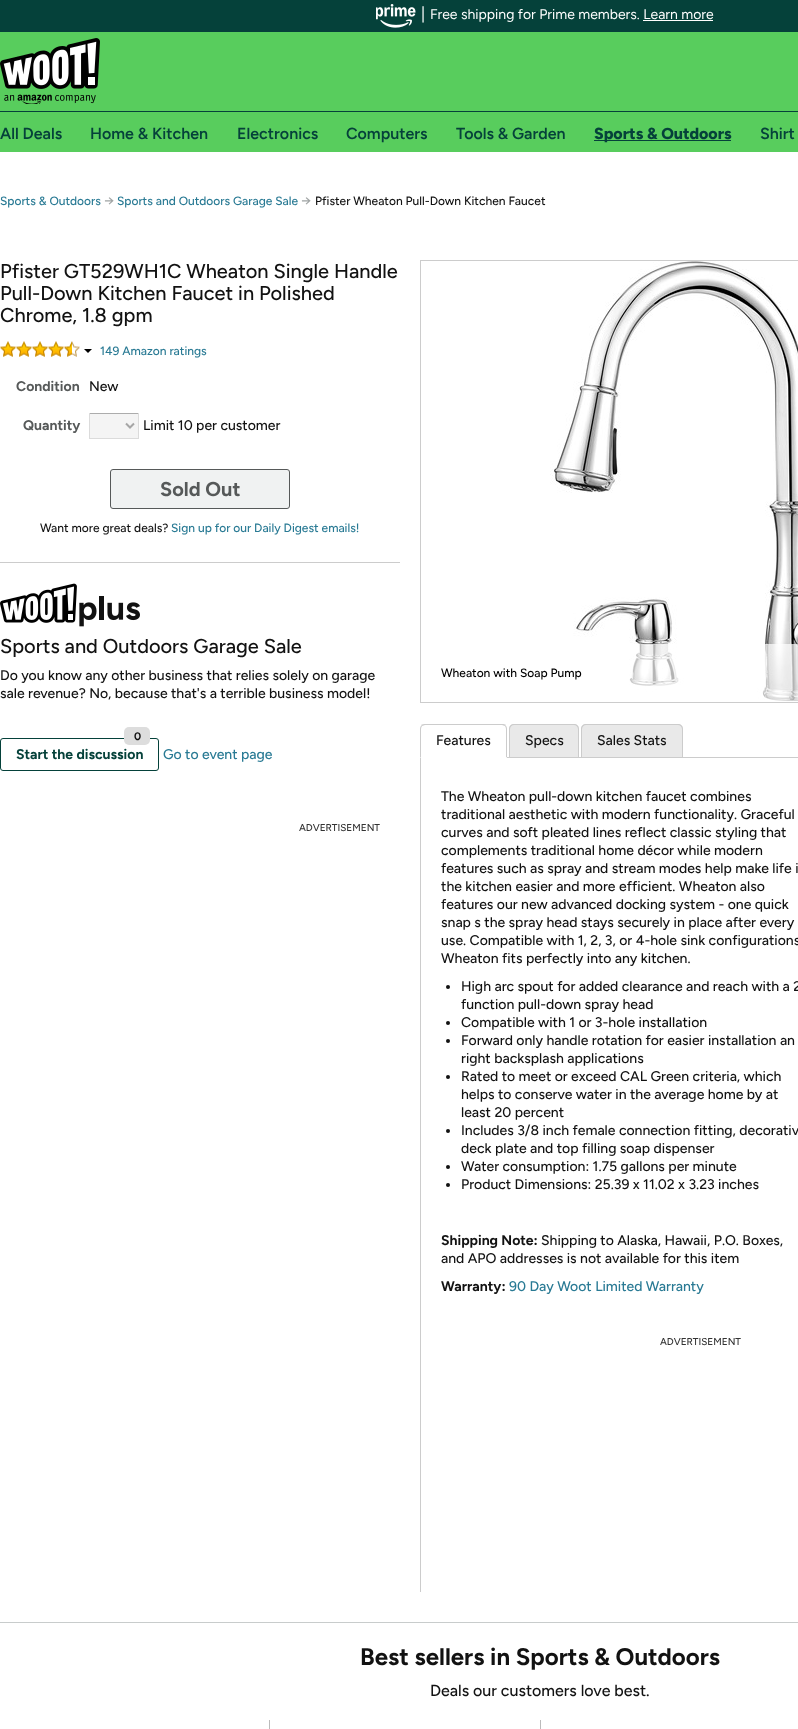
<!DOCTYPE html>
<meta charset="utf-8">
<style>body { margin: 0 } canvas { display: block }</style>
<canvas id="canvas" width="798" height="1729"></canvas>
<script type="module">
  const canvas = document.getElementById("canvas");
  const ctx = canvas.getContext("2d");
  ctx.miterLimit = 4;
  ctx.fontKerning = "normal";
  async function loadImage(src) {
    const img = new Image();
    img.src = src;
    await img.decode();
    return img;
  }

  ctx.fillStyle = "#ffffff";
  ctx.fillRect(0, 0, 798, 1729);
  ctx.fillStyle = "#05413a";
  ctx.fillRect(0, 0, 798, 32);
  ctx.drawImage(await loadImage("img1.png"), 376, 4, 40, 24);
  ctx.font = "16px Figtree";
  ctx.fillStyle = "#ffffff";
  ctx.fillText("|", 421, 19);
  ctx.font = "14px Figtree";
  ctx.fillText("Free shipping for Prime members. Learn more", 430, 19);
  ctx.fillRect(643, 20, 70, 1);
  ctx.fillStyle = "#58cd5d";
  ctx.fillRect(0, 32, 798, 120);
  ctx.fillStyle = "#05413a";
  ctx.fillRect(0, 111, 798, 1);
  ctx.drawImage(await loadImage("img2.png"), 0, 38, 100, 66);
  ctx.font = "600 16px Figtree";
  ctx.fillText("All Deals", 0, 139);
  ctx.fillText("Home & Kitchen", 90, 139);
  ctx.fillText("Electronics", 237, 139);
  ctx.fillText("Computers", 346, 139);
  ctx.fillText("Tools & Garden", 456, 139);
  ctx.fillRect(594, 140, 137, 1);
  ctx.font = "800 16px Figtree";
  ctx.fillText("Sports & Outdoors", 594, 139);
  ctx.font = "600 16px Figtree";
  ctx.fillText("Shirt", 760, 139);
  ctx.font = "500 12px Figtree";
  ctx.fillStyle = "#297a94";
  ctx.fillText("Sports & Outdoors", 0, 205);
  ctx.font = "500 14px Figtree";
  ctx.fillStyle = "#a2a6a6";
  ctx.fillText("→", 104, 205);
  ctx.font = "500 12px Figtree";
  ctx.fillStyle = "#297a94";
  ctx.fillText("Sports and Outdoors Garage Sale", 117, 205);
  ctx.font = "500 14px Figtree";
  ctx.fillStyle = "#a2a6a6";
  ctx.fillText("→", 301, 205);
  ctx.font = "500 12px Figtree";
  ctx.fillStyle = "#121212";
  ctx.fillText("Pfister Wheaton Pull-Down Kitchen Faucet", 315, 205);
  ctx.fillStyle = "#cccccc";
  ctx.fillRect(0, 562, 400, 1);
  ctx.font = "500 20px Figtree";
  ctx.fillStyle = "#121212";
  ctx.fillText("Pfister GT529WH1C Wheaton Single Handle", 0, 278);
  ctx.fillText("Pull-Down Kitchen Faucet in Polished", 0, 300);
  ctx.fillText("Chrome, 1.8 gpm", 0, 322);
  ctx.drawImage(await loadImage("img3.png"), 0, 341, 80, 16);
  ctx.fillStyle = "#000000";
  ctx.beginPath();
  ctx.moveTo(84, 349);
  ctx.lineTo(92, 349);
  ctx.lineTo(88, 353);
  ctx.closePath();
  ctx.fill();
  ctx.font = "500 12px Figtree";
  ctx.fillStyle = "#297a94";
  ctx.fillText("149 Amazon ratings", 100, 355);
  ctx.font = "bold 14px Figtree";
  ctx.fillStyle = "#565959";
  ctx.fillText("Condition", 16, 391);
  ctx.font = "500 14px Figtree";
  ctx.fillStyle = "#121212";
  ctx.fillText("New", 89, 391);
  ctx.font = "bold 14px Figtree";
  ctx.fillStyle = "#565959";
  ctx.fillText("Quantity", 23, 430);
  ctx.fillStyle = "#f4f4f4";
  ctx.fillRect(90, 414, 48, 24);
  ctx.fillStyle = "#acacac";
  ctx.fillRect(89, 413, 50, 1);
  ctx.fillStyle = "#dbdbdb";
  ctx.fillRect(138, 413, 1, 26);
  ctx.fillRect(89, 438, 50, 1);
  ctx.fillRect(89, 413, 1, 26);
  ctx.beginPath();
  ctx.moveTo(126, 423.5);
  ctx.lineTo(130, 427.5);
  ctx.lineTo(134, 423.5);
  ctx.strokeStyle = "#a6a6a6";
  ctx.lineWidth = 2;
  ctx.stroke();
  ctx.font = "500 14px Figtree";
  ctx.fillStyle = "#121212";
  ctx.fillText("Limit 10 per customer", 143, 430);
  ctx.fillStyle = "#f0f2f2";
  ctx.beginPath();
  ctx.roundRect(110.5, 469.5, 179, 39, 2.5);
  ctx.fill();
  ctx.strokeStyle = "#565959";
  ctx.lineWidth = 1;
  ctx.stroke();
  ctx.font = "bold 20px Figtree";
  ctx.fillStyle = "#565959";
  ctx.fillText("Sold Out", 160, 496);
  ctx.font = "500 12px Figtree";
  ctx.fillStyle = "#121212";
  ctx.fillText("Want more great deals?", 40, 532);
  ctx.fillStyle = "#297a94";
  ctx.fillText("Sign up for our Daily Digest emails!", 171, 532);
  ctx.drawImage(await loadImage("img4.png"), 0, 583, 140, 44);
  ctx.font = "500 20px Figtree";
  ctx.fillStyle = "#121212";
  ctx.fillText("Sports and Outdoors Garage Sale", 0, 653);
  ctx.font = "500 14px Figtree";
  ctx.fillText("Do you know any other business that relies solely on garage", 0, 680);
  ctx.fillText("sale revenue? No, because that's a terrible business model!", 0, 698);
  ctx.beginPath();
  ctx.roundRect(0.5, 738.5, 158, 32, 2.5);
  ctx.strokeStyle = "#05413a";
  ctx.stroke();
  ctx.fillStyle = "#dddddd";
  ctx.beginPath();
  ctx.roundRect(124, 727, 26, 18, 5);
  ctx.fill();
  ctx.font = "bold 11px Figtree";
  ctx.fillStyle = "#121212";
  ctx.fillText("0", 134, 740);
  ctx.font = "bold 14px Figtree";
  ctx.fillStyle = "#05413a";
  ctx.fillText("Start the discussion", 16, 759);
  ctx.font = "500 14px Figtree";
  ctx.fillStyle = "#297a94";
  ctx.fillText("Go to event page", 163, 759);
  ctx.font = "500 10px Figtree";
  ctx.fillStyle = "#333333";
  ctx.fillText("ADVERTISEMENT", 299, 831);
  ctx.strokeStyle = "#cccccc";
  ctx.strokeRect(420.5, 260.5, 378, 442);
  ctx.drawImage(await loadImage("img5.png"), 550, 261, 248, 441);
  ctx.fillStyle = "rgba(255, 255, 255, 0.7)";
  ctx.fillRect(629, 644, 169, 58);
  ctx.font = "500 12px Figtree";
  ctx.fillStyle = "#000000";
  ctx.fillText("Wheaton with Soap Pump", 441, 677);
  ctx.fillStyle = "#cccccc";
  ctx.fillRect(507, 757, 291, 1);
  ctx.beginPath();
  ctx.moveTo(425, 724);
  ctx.bezierCurveTo(424, 724, 422, 724, 421, 725);
  ctx.lineTo(422, 726);
  ctx.lineTo(425, 725);
  ctx.lineTo(502, 725);
  ctx.lineTo(505, 726);
  ctx.lineTo(506, 725);
  ctx.bezierCurveTo(505, 724, 504, 724, 502, 724);
  ctx.closePath();
  ctx.fill();
  ctx.beginPath();
  ctx.moveTo(507, 758);
  ctx.lineTo(507, 729);
  ctx.bezierCurveTo(507, 727.5, 506.5, 726, 505.5, 725.5);
  ctx.lineTo(505, 726);
  ctx.bezierCurveTo(505.5, 727, 506, 728, 506, 729);
  ctx.lineTo(506, 757);
  ctx.closePath();
  ctx.fill();
  ctx.fillStyle = "#ffffff";
  ctx.beginPath();
  ctx.moveTo(507, 758);
  ctx.lineTo(506, 757);
  ctx.lineTo(421, 757);
  ctx.lineTo(420, 758);
  ctx.closePath();
  ctx.fill();
  ctx.fillStyle = "#cccccc";
  ctx.beginPath();
  ctx.moveTo(420, 758);
  ctx.lineTo(421, 757);
  ctx.lineTo(421, 729);
  ctx.bezierCurveTo(421, 728, 421.5, 727, 422, 726);
  ctx.lineTo(421.5, 725.5);
  ctx.bezierCurveTo(420.5, 726, 420, 727.5, 420, 729);
  ctx.closePath();
  ctx.fill();
  ctx.font = "500 14px Figtree";
  ctx.fillStyle = "#121212";
  ctx.fillText("Features", 436, 745);
  ctx.fillStyle = "#e9e9e9";
  ctx.beginPath();
  ctx.roundRect(509, 724, 70, 33, [5, 5, 0, 0]);
  ctx.fill();
  ctx.fillStyle = "#cccccc";
  ctx.beginPath();
  ctx.moveTo(514, 724);
  ctx.lineTo(574, 724);
  ctx.bezierCurveTo(577, 724, 579, 726, 579, 729);
  ctx.lineTo(579, 757);
  ctx.lineTo(509, 757);
  ctx.lineTo(509, 729);
  ctx.bezierCurveTo(509, 726, 511, 724, 514, 724);
  ctx.closePath();
  ctx.moveTo(514, 725);
  ctx.lineTo(574, 725);
  ctx.bezierCurveTo(576, 725, 578, 727, 578, 729);
  ctx.lineTo(578, 757);
  ctx.lineTo(510, 757);
  ctx.lineTo(510, 729);
  ctx.bezierCurveTo(510, 727, 512, 725, 514, 725);
  ctx.closePath();
  ctx.fill("evenodd");
  ctx.fillStyle = "#121212";
  ctx.fillText("Specs", 525, 745);
  ctx.fillStyle = "#e9e9e9";
  ctx.beginPath();
  ctx.roundRect(581, 724, 102, 33, [5, 5, 0, 0]);
  ctx.fill();
  ctx.fillStyle = "#cccccc";
  ctx.beginPath();
  ctx.moveTo(586, 724);
  ctx.lineTo(678, 724);
  ctx.bezierCurveTo(681, 724, 683, 726, 683, 729);
  ctx.lineTo(683, 757);
  ctx.lineTo(581, 757);
  ctx.lineTo(581, 729);
  ctx.bezierCurveTo(581, 726, 583, 724, 586, 724);
  ctx.closePath();
  ctx.moveTo(586, 725);
  ctx.lineTo(678, 725);
  ctx.bezierCurveTo(680, 725, 682, 727, 682, 729);
  ctx.lineTo(682, 757);
  ctx.lineTo(582, 757);
  ctx.lineTo(582, 729);
  ctx.bezierCurveTo(582, 727, 584, 725, 586, 725);
  ctx.closePath();
  ctx.fill("evenodd");
  ctx.fillStyle = "#121212";
  ctx.fillText("Sales Stats", 597, 745);
  ctx.fillStyle = "#cccccc";
  ctx.fillRect(420, 758, 1, 834);
  ctx.fillStyle = "#121212";
  ctx.fillText("The Wheaton pull-down kitchen faucet combines", 441, 801);
  ctx.fillText("traditional aesthetic with modern functionality. Graceful", 441, 819);
  ctx.fillText("curves and soft pleated lines reflect classic styling that", 441, 837);
  ctx.fillText("complements traditional home décor while modern", 441, 855);
  ctx.fillText("features such as spray and stream modes help make life i", 441, 873);
  ctx.fillText("the kitchen easier and more efficient. Wheaton also", 441, 891);
  ctx.fillText("features our new advanced docking system - one quick", 441, 909);
  ctx.fillText("snap s the spray head stays securely in place after every", 441, 927);
  ctx.fillText("use. Compatible with 1, 2, 3, or 4-hole sink configurations", 441, 945);
  ctx.fillText("Wheaton fits perfectly into any kitchen.", 441, 963);
  ctx.beginPath();
  ctx.arc(448, 987, 2, 0, Math.PI * 2);
  ctx.fill();
  ctx.fillText("High arc spout for added clearance and reach with a 2", 461, 991);
  ctx.fillText("function pull-down spray head", 461, 1009);
  ctx.beginPath();
  ctx.arc(448, 1023, 2, 0, Math.PI * 2);
  ctx.fill();
  ctx.fillText("Compatible with 1 or 3-hole installation", 461, 1027);
  ctx.beginPath();
  ctx.arc(448, 1041, 2, 0, Math.PI * 2);
  ctx.fill();
  ctx.fillText("Forward only handle rotation for easier installation an", 461, 1045);
  ctx.fillText("right backsplash applications", 461, 1063);
  ctx.beginPath();
  ctx.arc(448, 1077, 2, 0, Math.PI * 2);
  ctx.fill();
  ctx.fillText("Rated to meet or exceed CAL Green criteria, which", 461, 1081);
  ctx.fillText("helps to conserve water in the average home by at", 461, 1099);
  ctx.fillText("least 20 percent", 461, 1117);
  ctx.beginPath();
  ctx.arc(448, 1131, 2, 0, Math.PI * 2);
  ctx.fill();
  ctx.fillText("Includes 3/8 inch female connection fitting, decorativ", 461, 1135);
  ctx.fillText("deck plate and top filling soap dispenser", 461, 1153);
  ctx.beginPath();
  ctx.arc(448, 1167, 2, 0, Math.PI * 2);
  ctx.fill();
  ctx.fillText("Water consumption: 1.75 gallons per minute", 461, 1171);
  ctx.beginPath();
  ctx.arc(448, 1185, 2, 0, Math.PI * 2);
  ctx.fill();
  ctx.fillText("Product Dimensions: 25.39 x 11.02 x 3.23 inches", 461, 1189);
  ctx.font = "bold 14px Figtree";
  ctx.fillText("Shipping Note:", 441, 1245);
  ctx.font = "500 14px Figtree";
  ctx.fillText("Shipping to Alaska, Hawaii, P.O. Boxes,", 541, 1245);
  ctx.fillText("and APO addresses is not available for this item", 441, 1263);
  ctx.font = "bold 14px Figtree";
  ctx.fillText("Warranty:", 441, 1291);
  ctx.font = "500 14px Figtree";
  ctx.fillStyle = "#297a94";
  ctx.fillText("90 Day Woot Limited Warranty", 509, 1291);
  ctx.font = "500 10px Figtree";
  ctx.fillStyle = "#333333";
  ctx.fillText("ADVERTISEMENT", 660, 1345);
  ctx.fillStyle = "#c8cccc";
  ctx.fillRect(0, 1622, 798, 1);
  ctx.font = "bold 24px Figtree";
  ctx.fillStyle = "#121212";
  ctx.fillText("Best sellers in Sports & Outdoors", 360, 1665);
  ctx.font = "500 16px Figtree";
  ctx.fillText("Deals our customers love best.", 430, 1696);
  ctx.fillStyle = "#bbbbbb";
  ctx.fillRect(269, 1720, 1, 9);
  ctx.fillRect(540, 1720, 1, 9);
</script>
